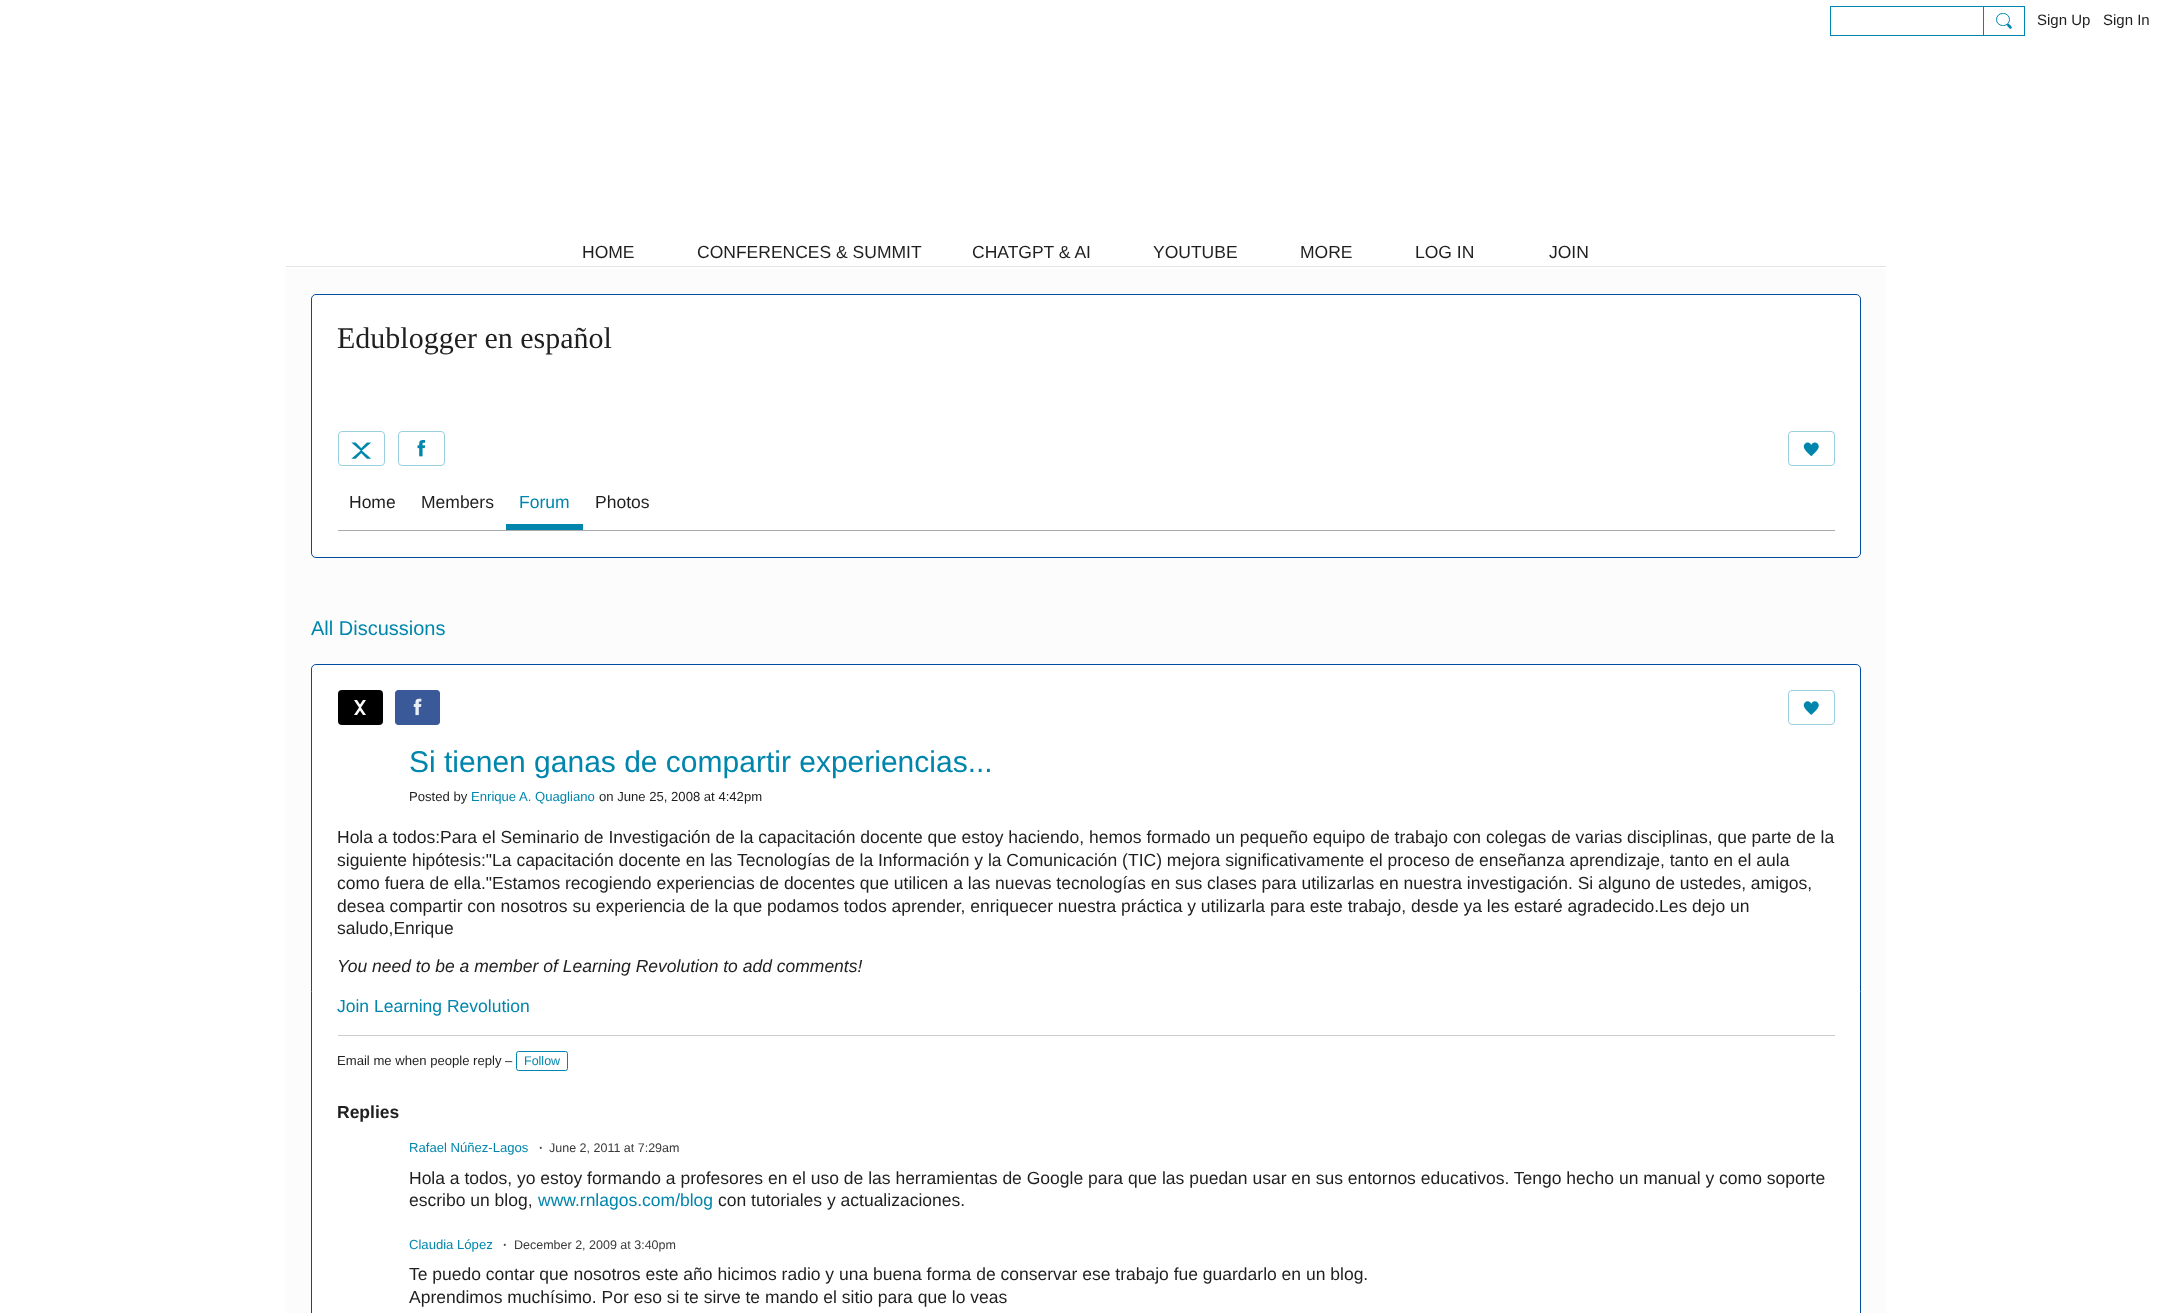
<!DOCTYPE html>
<meta charset="utf-8">
<style>body { margin: 0 } canvas { display: block }</style>
<canvas id="canvas" width="2171" height="1313"></canvas>
<script type="module">
  const canvas = document.getElementById("canvas");
  const ctx = canvas.getContext("2d");
  ctx.miterLimit = 4;
  ctx.fontKerning = "normal";
  async function loadImage(src) {
    const img = new Image();
    img.src = src;
    await img.decode();
    return img;
  }

  ctx.fillStyle = "#ffffff";
  ctx.fillRect(0, 0, 2171, 1313);
  ctx.strokeStyle = "#0086ad";
  ctx.strokeRect(1830.5, 6.5, 153, 29);
  ctx.strokeRect(1983.5, 6.5, 41, 29);
  ctx.beginPath();
  ctx.roundRect(1996.5, 13.5, 13, 12, 6);
  ctx.stroke();
  ctx.fillStyle = "#0086ad";
  ctx.beginPath();
  ctx.moveTo(2009, 24);
  ctx.lineTo(2011, 26);
  ctx.bezierCurveTo(2013, 28, 2011, 29.5, 2009.5, 28.5);
  ctx.lineTo(2007, 25.5);
  ctx.bezierCurveTo(2006, 24.5, 2008, 23, 2009, 24);
  ctx.closePath();
  ctx.fill();
  ctx.font = "15px Liberation Sans";
  ctx.fillStyle = "#1f1f1f";
  ctx.fillText("Sign Up", 2037, 25);
  ctx.fillText("Sign In", 2103, 25);
  ctx.fillStyle = "#e3e3e3";
  ctx.fillRect(286, 266, 1600, 1);
  ctx.font = "17.5px Liberation Sans";
  ctx.fillStyle = "#1f1f1f";
  ctx.fillText("HOME", 582, 258);
  ctx.fillText("CONFERENCES & SUMMIT", 697, 258);
  ctx.fillText("CHATGPT & AI", 972, 258);
  ctx.fillText("YOUTUBE", 1153, 258);
  ctx.fillText("MORE", 1300, 258);
  ctx.fillText("LOG IN", 1415, 258);
  ctx.fillText("JOIN", 1549, 258);
  ctx.fillStyle = "#fcfcfc";
  ctx.fillRect(286, 269, 1600, 1044);
  ctx.fillStyle = "#ffffff";
  ctx.beginPath();
  ctx.roundRect(311.5, 294.5, 1549, 263, 4.5);
  ctx.fill();
  ctx.strokeStyle = "#004d9f";
  ctx.stroke();
  ctx.font = "30px Liberation Serif";
  ctx.fillStyle = "#1f1f1f";
  ctx.fillText("Edublogger en español", 337, 348);
  ctx.beginPath();
  ctx.roundRect(338.5, 431.5, 46, 34, 3.5);
  ctx.strokeStyle = "#99cfde";
  ctx.stroke();
  ctx.drawImage(await loadImage("img1.png"), 351, 442, 21, 17);
  ctx.beginPath();
  ctx.roundRect(398.5, 431.5, 46, 34, 3.5);
  ctx.stroke();
  ctx.drawImage(await loadImage("img2.png"), 417, 440, 9, 17);
  ctx.beginPath();
  ctx.roundRect(1788.5, 431.5, 46, 34, 3.5);
  ctx.stroke();
  ctx.drawImage(await loadImage("img3.png"), 1803, 442, 16, 15);
  ctx.fillStyle = "#aaaaaa";
  ctx.fillRect(338, 530, 1497, 1);
  ctx.font = "17.5px Liberation Sans";
  ctx.fillStyle = "#1f1f1f";
  ctx.fillText("Home", 349, 508);
  ctx.fillText("Members", 421, 508);
  ctx.fillStyle = "#0086ad";
  ctx.fillRect(506, 524, 77, 6);
  ctx.fillText("Forum", 519, 508);
  ctx.fillStyle = "#1f1f1f";
  ctx.fillText("Photos", 595, 508);
  ctx.font = "20px Liberation Sans";
  ctx.fillStyle = "#0086ad";
  ctx.fillText("All Discussions", 311, 635);
  ctx.fillStyle = "#ffffff";
  ctx.beginPath();
  ctx.roundRect(311.5, 664.5, 1549, 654, 4.5);
  ctx.fill();
  ctx.strokeStyle = "#004d9f";
  ctx.stroke();
  ctx.fillStyle = "#000000";
  ctx.beginPath();
  ctx.roundRect(338, 690, 45, 35, 4);
  ctx.fill();
  ctx.fillStyle = "#ffffff";
  ctx.beginPath();
  ctx.moveTo(354, 700);
  ctx.lineTo(359, 707.5);
  ctx.lineTo(354, 715);
  ctx.lineTo(357, 715);
  ctx.lineTo(360, 710.5);
  ctx.lineTo(363, 715);
  ctx.lineTo(366, 715);
  ctx.lineTo(361, 707.5);
  ctx.lineTo(366, 700);
  ctx.lineTo(363, 700);
  ctx.lineTo(360, 704.5);
  ctx.lineTo(357, 700);
  ctx.closePath();
  ctx.fill("evenodd");
  ctx.fillStyle = "#3b5998";
  ctx.beginPath();
  ctx.roundRect(395, 690, 45, 35, 4);
  ctx.fill();
  ctx.drawImage(await loadImage("img4.png"), 395, 690, 45, 35);
  ctx.beginPath();
  ctx.roundRect(1788.5, 690.5, 46, 34, 3.5);
  ctx.strokeStyle = "#99cfde";
  ctx.stroke();
  ctx.drawImage(await loadImage("img5.png"), 1803, 701, 16, 14);
  ctx.font = "30px Liberation Sans";
  ctx.fillStyle = "#0086ad";
  ctx.fillText("Si tienen ganas de compartir experiencias...", 409, 772);
  ctx.font = "13.1px Liberation Sans";
  ctx.fillStyle = "#1f1f1f";
  ctx.fillText("Posted by", 409, 801);
  ctx.fillStyle = "#0086ad";
  ctx.fillText("Enrique A. Quagliano", 471, 801);
  ctx.fillStyle = "#1f1f1f";
  ctx.fillText("on June 25, 2008 at 4:42pm", 599, 801);
  ctx.font = "17.5px Liberation Sans";
  ctx.fillText("Hola a todos:Para el Seminario de Investigación de la capacitación docente que estoy haciendo, hemos formado un pequeño equipo de trabajo con colegas de varias disciplinas, que parte de la", 337, 843);
  ctx.fillText("siguiente hipótesis:\"La capacitación docente en las Tecnologías de la Información y la Comunicación (TIC) mejora significativamente el proceso de enseñanza aprendizaje, tanto en el aula", 337, 866);
  ctx.fillText("como fuera de ella.\"Estamos recogiendo experiencias de docentes que utilicen a las nuevas tecnologías en sus clases para utilizarlas en nuestra investigación. Si alguno de ustedes, amigos,", 337, 889);
  ctx.fillText("desea compartir con nosotros su experiencia de la que podamos todos aprender, enriquecer nuestra práctica y utilizarla para este trabajo, desde ya les estaré agradecido.Les dejo un", 337, 912);
  ctx.fillText("saludo,Enrique", 337, 934);
  ctx.font = "italic 17.5px Liberation Sans";
  ctx.fillText("You need to be a member of Learning Revolution to add comments!", 337, 972);
  ctx.font = "17.5px Liberation Sans";
  ctx.fillStyle = "#0086ad";
  ctx.fillText("Join Learning Revolution", 337, 1012);
  ctx.fillStyle = "#cccccc";
  ctx.fillRect(338, 1035, 1497, 1);
  ctx.font = "13.1px Liberation Sans";
  ctx.fillStyle = "#1f1f1f";
  ctx.fillText("Email me when people reply –", 337, 1065);
  ctx.beginPath();
  ctx.roundRect(516.5, 1051.5, 51, 19, 2);
  ctx.strokeStyle = "#0086ad";
  ctx.stroke();
  ctx.font = "12.5px Liberation Sans";
  ctx.fillStyle = "#0086ad";
  ctx.fillText("Follow", 524, 1065);
  ctx.font = "bold 17.5px Liberation Sans";
  ctx.fillStyle = "#1f1f1f";
  ctx.fillText("Replies", 337, 1118);
  ctx.font = "13.1px Liberation Sans";
  ctx.fillStyle = "#0086ad";
  ctx.fillText("Rafael Núñez-Lagos", 409, 1152);
  ctx.font = "bold 12.5px Liberation Sans";
  ctx.fillStyle = "#393939";
  ctx.fillText("·", 539, 1152);
  ctx.font = "12.5px Liberation Sans";
  ctx.fillText("June 2, 2011 at 7:29am", 549, 1152);
  ctx.font = "17.5px Liberation Sans";
  ctx.fillStyle = "#1f1f1f";
  ctx.fillText("Hola a todos, yo estoy formando a profesores en el uso de las herramientas de Google para que las puedan usar en sus entornos educativos. Tengo hecho un manual y como soporte", 409, 1184);
  ctx.fillText("escribo un blog,", 409, 1206);
  ctx.fillStyle = "#0086ad";
  ctx.fillText("www.rnlagos.com/blog", 538, 1206);
  ctx.fillStyle = "#1f1f1f";
  ctx.fillText("con tutoriales y actualizaciones.", 718, 1206);
  ctx.font = "13.1px Liberation Sans";
  ctx.fillStyle = "#0086ad";
  ctx.fillText("Claudia López", 409, 1249);
  ctx.font = "bold 12.5px Liberation Sans";
  ctx.fillStyle = "#393939";
  ctx.fillText("·", 503, 1249);
  ctx.font = "12.5px Liberation Sans";
  ctx.fillText("December 2, 2009 at 3:40pm", 514, 1249);
  ctx.font = "17.5px Liberation Sans";
  ctx.fillStyle = "#1f1f1f";
  ctx.fillText("Te puedo contar que nosotros este año hicimos radio y una buena forma de conservar ese trabajo fue guardarlo en un blog.", 409, 1280);
  ctx.fillText("Aprendimos muchísimo. Por eso si te sirve te mando el sitio para que lo veas", 409, 1303);
</script>
